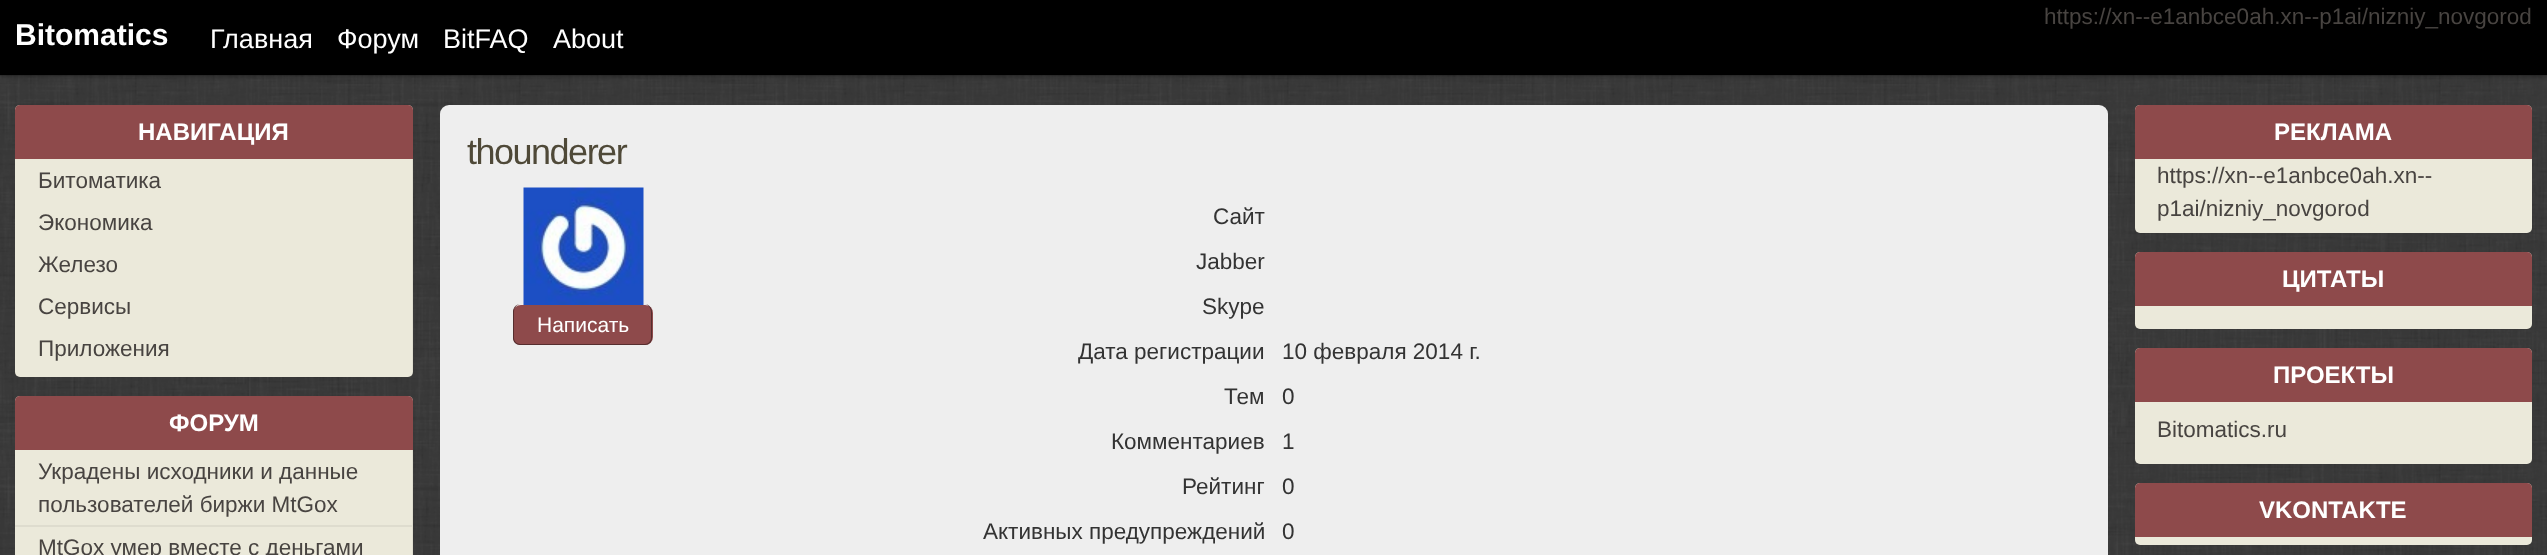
<!DOCTYPE html>
<meta charset="utf-8">
<style>body { margin: 0 } canvas { display: block }</style>
<canvas id="canvas" width="2547" height="555"></canvas>
<script type="module">
  const canvas = document.getElementById("canvas");
  const ctx = canvas.getContext("2d");
  ctx.miterLimit = 4;
  ctx.fontKerning = "normal";
  async function loadImage(src) {
    const img = new Image();
    img.src = src;
    await img.decode();
    return img;
  }

  ctx.fillStyle = "#ffffff";
  ctx.fillRect(0, 0, 2547, 555);
  ctx.drawImage(await loadImage("img1.png"), 0, 75, 2547, 480);
  ctx.fillStyle = "rgba(0, 0, 0, 0.25)";
  ctx.filter = "blur(2px)";
  ctx.beginPath();
  ctx.rect(0, 2, 2547, 75);
  ctx.fill();
  ctx.filter = "none";
  ctx.fillStyle = "#000000";
  ctx.fillRect(0, 0, 2547, 75);
  ctx.fillStyle = "rgba(0, 0, 0, 0.1)";
  ctx.fillRect(0, 75, 2547, 1);
  ctx.font = "bold 30px Liberation Sans";
  ctx.fillStyle = "#ffffff";
  ctx.fillText("Bitomatics", 15, 45);
  ctx.font = "22.5px Liberation Sans";
  ctx.fillStyle = "#484441";
  ctx.fillText("https://xn--e1anbce0ah.xn--p1ai/nizniy_novgorod", 2044, 24);
  ctx.font = "27px Liberation Sans";
  ctx.fillStyle = "#ffffff";
  ctx.fillText("Главная", 210, 48);
  ctx.fillText("Форум", 337, 48);
  ctx.fillText("BitFAQ", 443, 48);
  ctx.fillText("About", 553, 48);
  ctx.fillStyle = "#ebe9da";
  ctx.beginPath();
  ctx.roundRect(15, 105, 398, 272, 5);
  ctx.fill();
  ctx.fillStyle = "rgba(0, 0, 0, 0.05)";
  ctx.beginPath();
  ctx.moveTo(20, 106);
  ctx.lineTo(408, 106);
  ctx.bezierCurveTo(410, 106, 412, 109, 412, 111);
  ctx.lineTo(412, 375);
  ctx.bezierCurveTo(413, 374, 413, 373, 413, 372);
  ctx.lineTo(413, 110);
  ctx.bezierCurveTo(413, 107, 411, 105, 408, 105);
  ctx.lineTo(20, 105);
  ctx.bezierCurveTo(17, 105, 15, 107, 15, 110);
  ctx.lineTo(15, 111);
  ctx.bezierCurveTo(15, 109, 17, 106, 20, 106);
  ctx.closePath();
  ctx.fill();
  ctx.fillStyle = "#8e4a4b";
  ctx.beginPath();
  ctx.roundRect(15, 105, 398, 54, [5, 5, 0, 0]);
  ctx.fill();
  ctx.font = "bold 24px Liberation Sans";
  ctx.fillStyle = "#ffffff";
  ctx.fillText("НАВИГАЦИЯ", 138, 140);
  ctx.font = "22.5px Liberation Sans";
  ctx.fillStyle = "#484441";
  ctx.fillText("Битоматика", 38, 188);
  ctx.fillText("Экономика", 38, 230);
  ctx.fillText("Железо", 38, 272);
  ctx.fillText("Сервисы", 38, 314);
  ctx.fillText("Приложения", 38, 356);
  ctx.fillStyle = "#ebe9da";
  ctx.beginPath();
  ctx.roundRect(15, 396, 398, 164, 5);
  ctx.fill();
  ctx.fillStyle = "rgba(0, 0, 0, 0.05)";
  ctx.beginPath();
  ctx.moveTo(20, 398);
  ctx.lineTo(408, 398);
  ctx.bezierCurveTo(410, 398, 412, 400, 412, 402);
  ctx.lineTo(412, 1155);
  ctx.bezierCurveTo(413, 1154, 413, 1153, 413, 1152);
  ctx.lineTo(413, 401);
  ctx.bezierCurveTo(413, 398, 411, 396, 408, 396);
  ctx.lineTo(20, 396);
  ctx.bezierCurveTo(17, 396, 15, 398, 15, 401);
  ctx.lineTo(15, 402);
  ctx.bezierCurveTo(15, 400, 17, 398, 20, 398);
  ctx.closePath();
  ctx.fill();
  ctx.fillStyle = "#8e4a4b";
  ctx.beginPath();
  ctx.roundRect(15, 396, 398, 54, [5, 5, 0, 0]);
  ctx.fill();
  ctx.font = "bold 24px Liberation Sans";
  ctx.fillStyle = "#ffffff";
  ctx.fillText("ФОРУМ", 169, 431);
  ctx.fillStyle = "#dedcce";
  ctx.fillRect(15, 525, 398, 2);
  ctx.font = "22.5px Liberation Sans";
  ctx.fillStyle = "#484441";
  ctx.fillText("Украдены исходники и данные", 38, 479);
  ctx.fillText("пользователей биржи MtGox", 38, 512);
  ctx.fillText("MtGox умер вместе с деньгами", 38, 555);
  ctx.fillStyle = "#eeeeee";
  ctx.beginPath();
  ctx.roundRect(440, 105, 1668, 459, 9);
  ctx.fill();
  ctx.letterSpacing = "-1.5px";
  ctx.font = "36px Liberation Sans";
  ctx.fillStyle = "#4f4938";
  ctx.fillText("thounderer", 467, 164);
  ctx.letterSpacing = "0px";
  ctx.font = "22.5px Liberation Sans";
  ctx.fillStyle = "#333333";
  ctx.fillText("Сайт", 1213, 224);
  ctx.fillText("Jabber", 1196, 269);
  ctx.fillText("Skype", 1202, 314);
  ctx.drawImage(await loadImage("img2.png"), 523, 187, 121, 118);
  ctx.fillStyle = "#8e4a4b";
  ctx.beginPath();
  ctx.roundRect(513, 305, 140, 40, 8);
  ctx.fill();
  ctx.fillStyle = "#562d2e";
  ctx.beginPath();
  ctx.moveTo(520, 304);
  ctx.lineTo(645, 304);
  ctx.bezierCurveTo(649, 304, 652, 308, 652, 312);
  ctx.lineTo(652, 338);
  ctx.bezierCurveTo(652, 342, 649, 345, 645, 345);
  ctx.lineTo(520, 345);
  ctx.bezierCurveTo(516, 345, 513, 342, 513, 338);
  ctx.lineTo(513, 312);
  ctx.bezierCurveTo(513, 308, 516, 304, 520, 304);
  ctx.closePath();
  ctx.moveTo(520, 304);
  ctx.lineTo(645, 304);
  ctx.bezierCurveTo(648, 304, 651, 308, 651, 312);
  ctx.lineTo(651, 338);
  ctx.bezierCurveTo(651, 341, 648, 344, 645, 344);
  ctx.lineTo(520, 344);
  ctx.bezierCurveTo(517, 344, 514, 341, 514, 338);
  ctx.lineTo(514, 312);
  ctx.bezierCurveTo(514, 308, 517, 304, 520, 304);
  ctx.closePath();
  ctx.fill("evenodd");
  ctx.font = "21px Liberation Sans";
  ctx.fillStyle = "#ffffff";
  ctx.fillText("Написать", 537, 332);
  ctx.font = "22.5px Liberation Sans";
  ctx.fillStyle = "#333333";
  ctx.fillText("Дата регистрации", 1078, 359);
  ctx.fillText("10 февраля 2014 г.", 1282, 359);
  ctx.fillText("Тем", 1224, 404);
  ctx.fillText("0", 1282, 404);
  ctx.fillText("Комментариев", 1111, 449);
  ctx.fillText("1", 1282, 449);
  ctx.fillText("Рейтинг", 1182, 494);
  ctx.fillText("0", 1282, 494);
  ctx.fillText("Активных предупреждений", 983, 539);
  ctx.fillText("0", 1282, 539);
  ctx.fillStyle = "#ebe9da";
  ctx.beginPath();
  ctx.roundRect(2135, 105, 397, 128, 5);
  ctx.fill();
  ctx.fillStyle = "rgba(0, 0, 0, 0.05)";
  ctx.beginPath();
  ctx.moveTo(2139, 106);
  ctx.lineTo(2528, 106);
  ctx.bezierCurveTo(2530, 106, 2532, 109, 2532, 111);
  ctx.lineTo(2532, 110);
  ctx.bezierCurveTo(2532, 107, 2530, 105, 2527, 105);
  ctx.lineTo(2140, 105);
  ctx.bezierCurveTo(2138, 105, 2136, 106, 2135, 108);
  ctx.bezierCurveTo(2136, 107, 2138, 106, 2139, 106);
  ctx.closePath();
  ctx.fill();
  ctx.fillStyle = "#8e4a4b";
  ctx.beginPath();
  ctx.roundRect(2135, 105, 397, 54, [5, 5, 0, 0]);
  ctx.fill();
  ctx.font = "bold 24px Liberation Sans";
  ctx.fillStyle = "#ffffff";
  ctx.fillText("РЕКЛАМА", 2274, 140);
  ctx.font = "22.5px Liberation Sans";
  ctx.fillStyle = "#484441";
  ctx.fillText("https://xn--e1anbce0ah.xn--", 2157, 183);
  ctx.fillText("p1ai/nizniy_novgorod", 2157, 216);
  ctx.fillStyle = "#ebe9da";
  ctx.beginPath();
  ctx.roundRect(2135, 252, 397, 77, 5);
  ctx.fill();
  ctx.fillStyle = "rgba(0, 0, 0, 0.05)";
  ctx.beginPath();
  ctx.moveTo(2139, 254);
  ctx.lineTo(2528, 254);
  ctx.bezierCurveTo(2530, 254, 2532, 256, 2532, 258);
  ctx.lineTo(2532, 257);
  ctx.bezierCurveTo(2532, 254, 2530, 252, 2527, 252);
  ctx.lineTo(2140, 252);
  ctx.bezierCurveTo(2138, 252, 2136, 254, 2135, 256);
  ctx.bezierCurveTo(2136, 255, 2138, 254, 2139, 254);
  ctx.closePath();
  ctx.fill();
  ctx.fillStyle = "#8e4a4b";
  ctx.beginPath();
  ctx.roundRect(2135, 252, 397, 54, [5, 5, 0, 0]);
  ctx.fill();
  ctx.font = "bold 24px Liberation Sans";
  ctx.fillStyle = "#ffffff";
  ctx.fillText("ЦИТАТЫ", 2282, 287);
  ctx.fillStyle = "#ebe9da";
  ctx.beginPath();
  ctx.roundRect(2135, 348, 397, 116, 5);
  ctx.fill();
  ctx.fillStyle = "rgba(0, 0, 0, 0.05)";
  ctx.beginPath();
  ctx.moveTo(2139, 350);
  ctx.lineTo(2528, 350);
  ctx.bezierCurveTo(2530, 350, 2532, 352, 2532, 354);
  ctx.lineTo(2532, 353);
  ctx.bezierCurveTo(2532, 350, 2530, 348, 2527, 348);
  ctx.lineTo(2140, 348);
  ctx.bezierCurveTo(2138, 348, 2136, 350, 2135, 352);
  ctx.bezierCurveTo(2136, 351, 2138, 350, 2139, 350);
  ctx.closePath();
  ctx.fill();
  ctx.fillStyle = "#8e4a4b";
  ctx.beginPath();
  ctx.roundRect(2135, 348, 397, 54, [5, 5, 0, 0]);
  ctx.fill();
  ctx.fillStyle = "#ffffff";
  ctx.fillText("ПРОЕКТЫ", 2273, 383);
  ctx.font = "22.5px Liberation Sans";
  ctx.fillStyle = "#484441";
  ctx.fillText("Bitomatics.ru", 2157, 437);
  ctx.fillStyle = "#ebe9da";
  ctx.beginPath();
  ctx.roundRect(2135, 483, 397, 62, 5);
  ctx.fill();
  ctx.fillStyle = "rgba(0, 0, 0, 0.05)";
  ctx.beginPath();
  ctx.moveTo(2139, 484);
  ctx.lineTo(2528, 484);
  ctx.bezierCurveTo(2530, 484, 2532, 487, 2532, 489);
  ctx.lineTo(2532, 488);
  ctx.bezierCurveTo(2532, 485, 2530, 483, 2527, 483);
  ctx.lineTo(2140, 483);
  ctx.bezierCurveTo(2138, 483, 2136, 484, 2135, 486);
  ctx.bezierCurveTo(2136, 485, 2138, 484, 2139, 484);
  ctx.closePath();
  ctx.fill();
  ctx.fillStyle = "#8e4a4b";
  ctx.beginPath();
  ctx.roundRect(2135, 483, 397, 54, [5, 5, 0, 0]);
  ctx.fill();
  ctx.font = "bold 24px Liberation Sans";
  ctx.fillStyle = "#ffffff";
  ctx.fillText("VKONTAKTE", 2259, 518);
</script>
